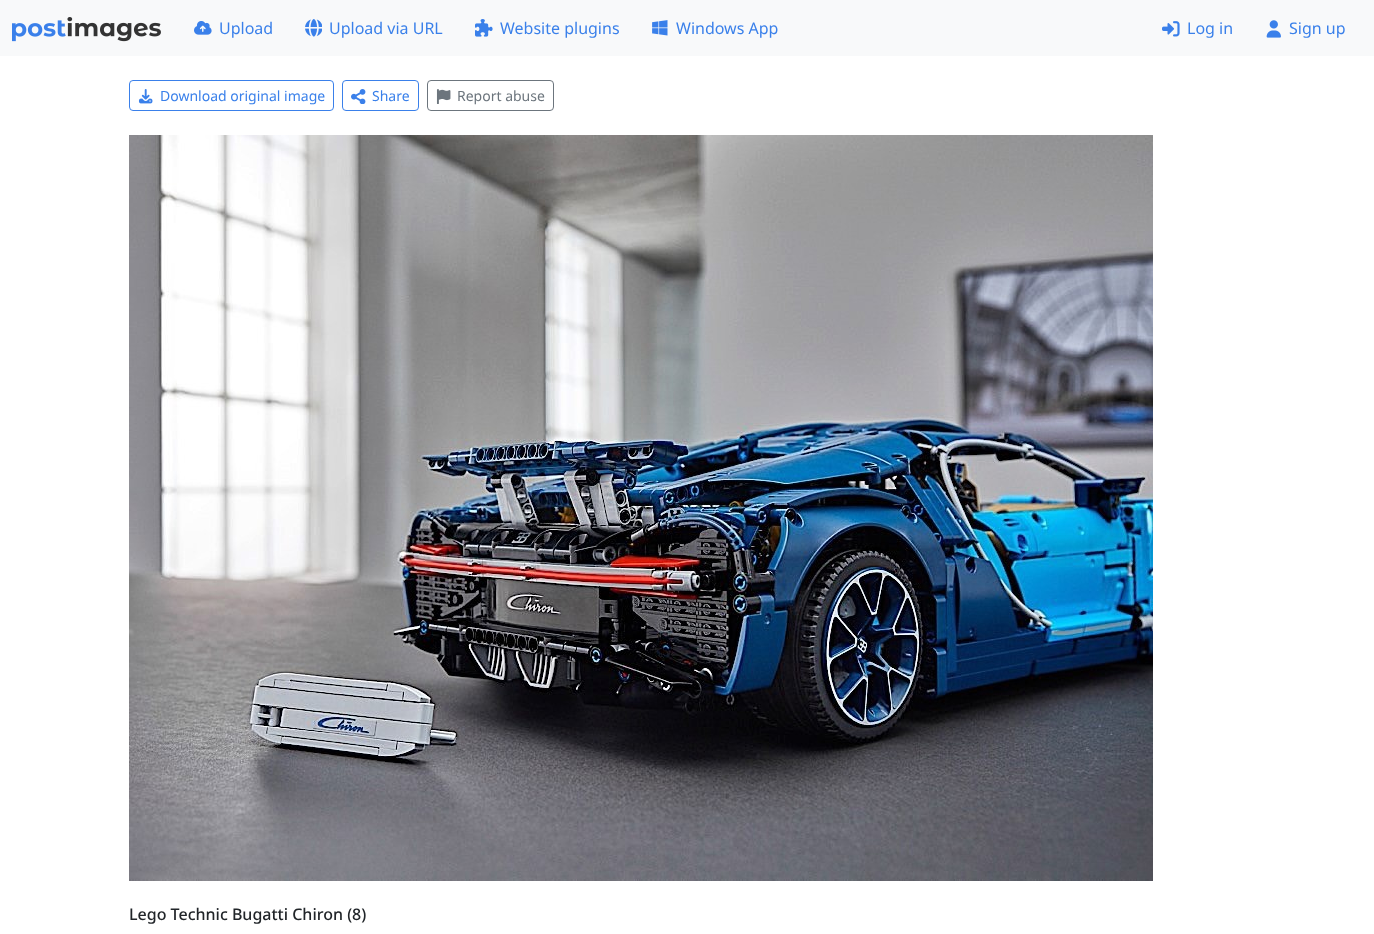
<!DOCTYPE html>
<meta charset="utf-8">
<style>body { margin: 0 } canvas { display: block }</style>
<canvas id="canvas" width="1374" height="934"></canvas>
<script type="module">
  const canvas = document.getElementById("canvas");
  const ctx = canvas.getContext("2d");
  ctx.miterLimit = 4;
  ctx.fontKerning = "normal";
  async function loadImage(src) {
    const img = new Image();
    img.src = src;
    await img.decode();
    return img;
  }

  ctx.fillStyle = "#ffffff";
  ctx.fillRect(0, 0, 1374, 934);
  ctx.fillStyle = "#f8f9fa";
  ctx.fillRect(0, 0, 1374, 56);
  ctx.drawImage(await loadImage("img1.png"), 12, 17, 149, 25);
  ctx.drawImage(await loadImage("img2.png"), 194, 21, 18, 14);
  ctx.font = "16px Noto Sans";
  ctx.fillStyle = "#3a80ea";
  ctx.fillText("Upload", 219, 34);
  ctx.drawImage(await loadImage("img3.png"), 305, 19, 17, 18);
  ctx.fillText("Upload via URL", 329, 34);
  ctx.drawImage(await loadImage("img4.png"), 475, 19, 18, 18);
  ctx.fillText("Website plugins", 500, 34);
  ctx.drawImage(await loadImage("img5.png"), 652, 20, 16, 16);
  ctx.fillText("Windows App", 676, 34);
  ctx.drawImage(await loadImage("img6.png"), 1162, 21, 18, 16);
  ctx.fillText("Log in", 1187, 34);
  ctx.drawImage(await loadImage("img7.png"), 1266, 20, 15, 18);
  ctx.fillText("Sign up", 1289, 34);
  ctx.beginPath();
  ctx.roundRect(129.5, 80.5, 204, 30, 3.5);
  ctx.strokeStyle = "#3a80ea";
  ctx.stroke();
  ctx.drawImage(await loadImage("img8.png"), 138, 89, 15, 15);
  ctx.font = "14px Noto Sans";
  ctx.fillText("Download original image", 160, 101);
  ctx.beginPath();
  ctx.roundRect(342.5, 80.5, 76, 30, 3.5);
  ctx.stroke();
  ctx.drawImage(await loadImage("img9.png"), 351, 89, 15, 15);
  ctx.fillText("Share", 372, 101);
  ctx.beginPath();
  ctx.roundRect(427.5, 80.5, 126, 30, 3.5);
  ctx.strokeStyle = "#6c757d";
  ctx.stroke();
  ctx.drawImage(await loadImage("img10.png"), 436, 89, 15, 15);
  ctx.fillStyle = "#6c757d";
  ctx.fillText("Report abuse", 457, 101);
  ctx.drawImage(await loadImage("img11.png"), 129, 135, 1024, 746);
  ctx.font = "500 16px Noto Sans";
  ctx.fillStyle = "#212529";
  ctx.fillText("Lego Technic Bugatti Chiron (8)", 129, 920);
</script>
